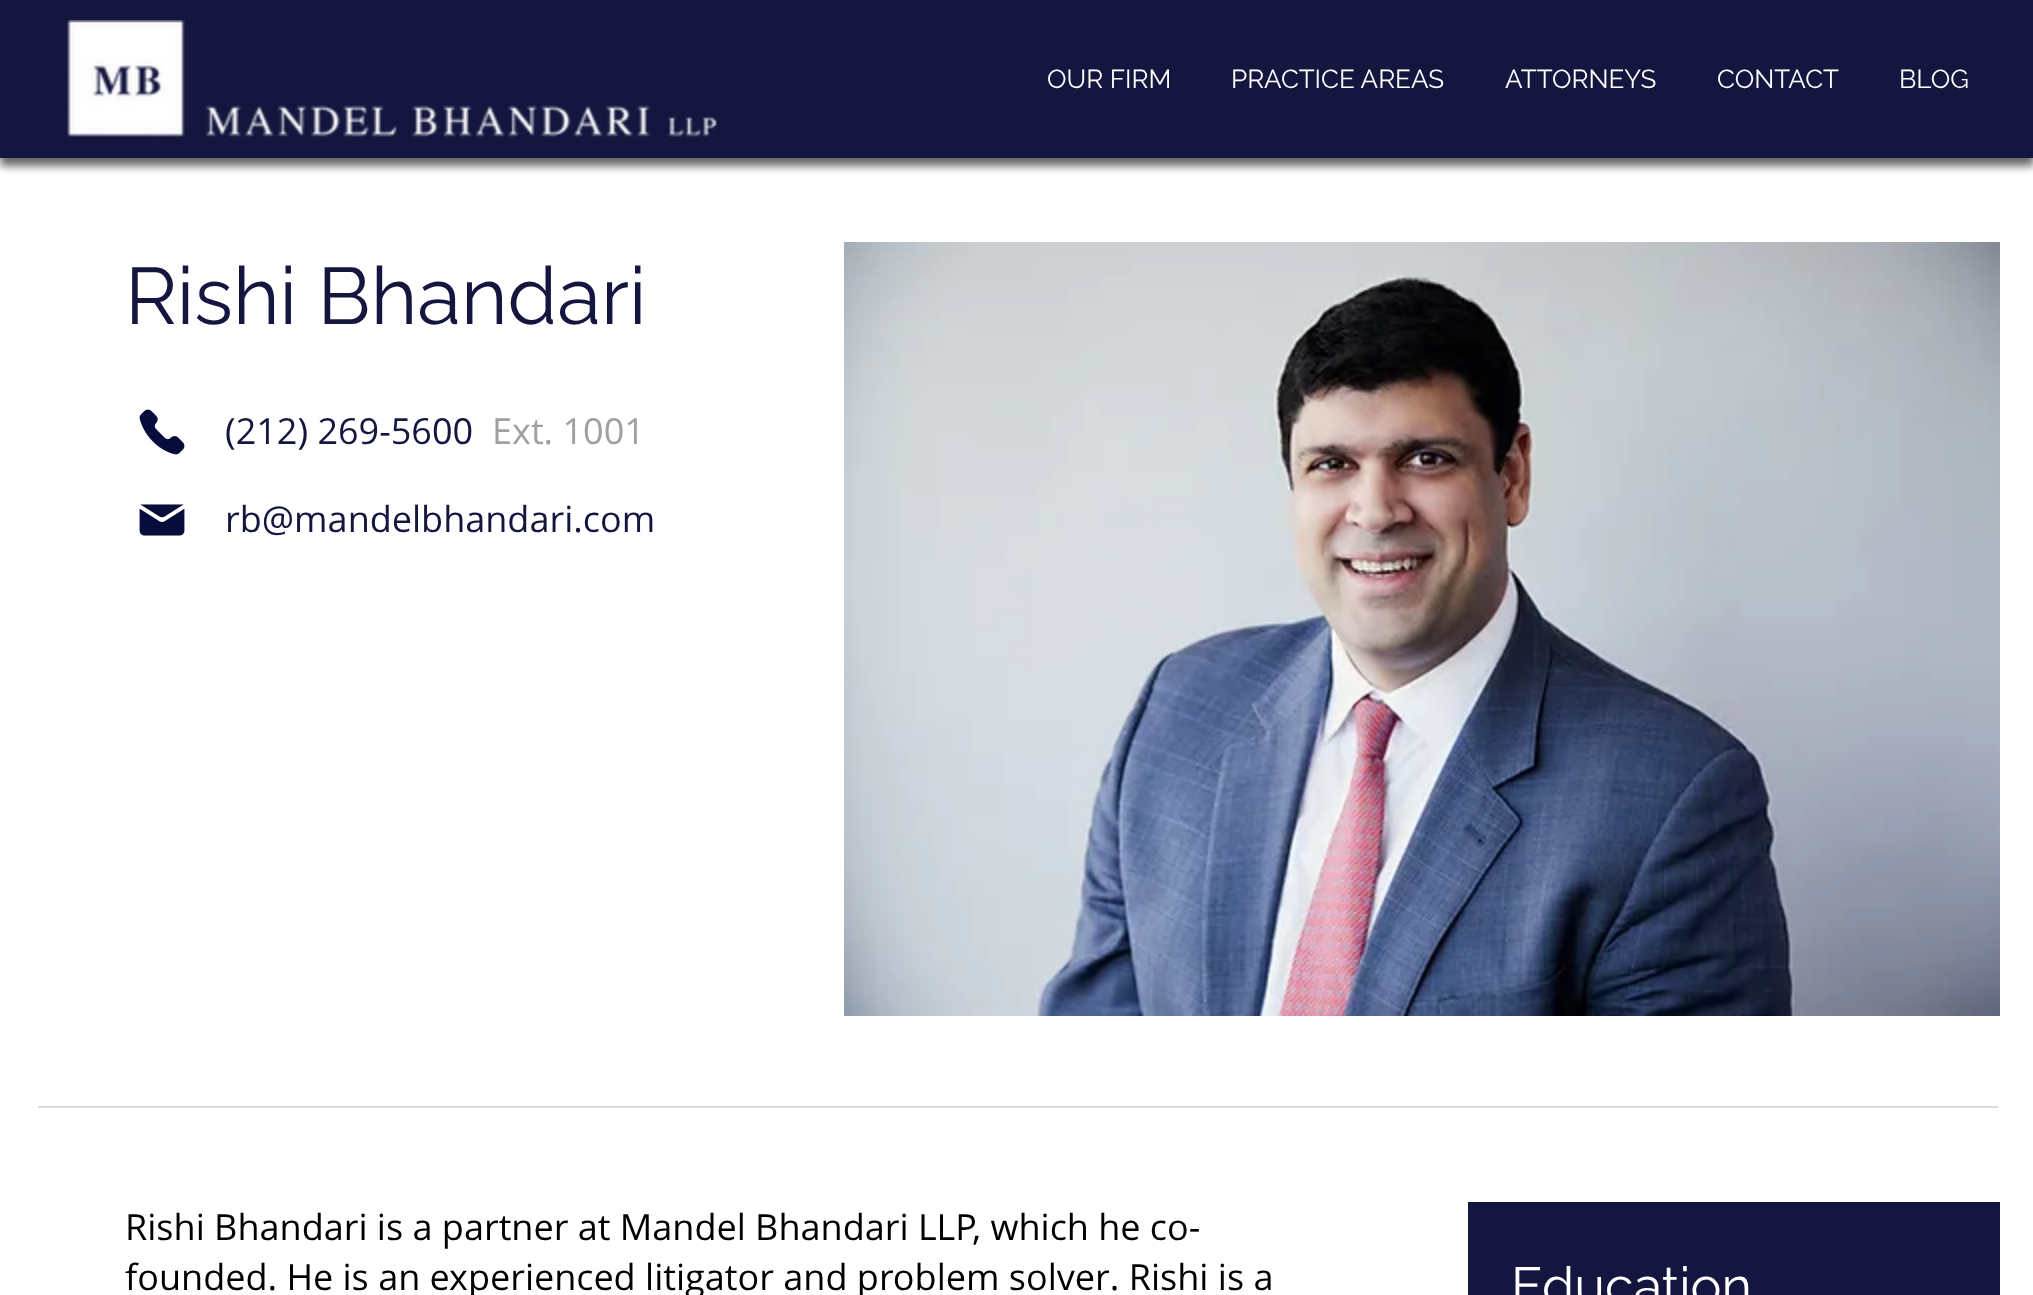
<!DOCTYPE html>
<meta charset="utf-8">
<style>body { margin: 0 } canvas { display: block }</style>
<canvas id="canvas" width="2033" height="1295"></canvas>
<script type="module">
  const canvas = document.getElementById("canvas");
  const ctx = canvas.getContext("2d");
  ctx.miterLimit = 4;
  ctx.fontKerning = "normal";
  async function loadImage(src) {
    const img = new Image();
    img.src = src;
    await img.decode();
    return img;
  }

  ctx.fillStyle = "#ffffff";
  ctx.fillRect(0, 0, 2033, 1295);
  ctx.fillStyle = "rgba(0, 0, 0, 0.6)";
  ctx.filter = "blur(4px)";
  ctx.beginPath();
  ctx.rect(0, 8, 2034, 158);
  ctx.fill();
  ctx.filter = "none";
  ctx.fillStyle = "#14163f";
  ctx.fillRect(0, 0, 2033, 158);
  ctx.drawImage(await loadImage("img1.png"), 67, 20, 650, 117);
  ctx.font = "26px Raleway";
  ctx.fillStyle = "#ffffff";
  ctx.fillText("OUR FIRM", 1047, 88);
  ctx.fillText("PRACTICE AREAS", 1231, 88);
  ctx.fillText("ATTORNEYS", 1505, 88);
  ctx.fillText("CONTACT", 1717, 88);
  ctx.fillText("BLOG", 1899, 88);
  ctx.font = "80px Raleway";
  ctx.fillStyle = "#14163f";
  ctx.fillText("Rishi Bhandari", 125, 324);
  ctx.drawImage(await loadImage("img2.png"), 139, 409, 46, 46);
  ctx.font = "36px Open Sans";
  ctx.fillText("(212) 269-5600", 225, 444);
  ctx.fillStyle = "#a0a0a0";
  ctx.fillText("Ext. 1001", 492, 444);
  ctx.drawImage(await loadImage("img3.png"), 844, 242, 1156, 774);
  ctx.fillStyle = "#14163f";
  ctx.fillText("rb@mandelbhandari.com", 225, 532);
  ctx.fillStyle = "#000000";
  ctx.fillText("Rishi Bhandari is a partner at Mandel Bhandari LLP, which he co-", 125, 1240);
  ctx.fillText("founded. He is an experienced litigator and problem solver. Rishi is a", 125, 1290);
  ctx.drawImage(await loadImage("img4.png"), 139, 504, 46, 32);
  ctx.fillStyle = "#dddddd";
  ctx.fillRect(38, 1106, 1960, 2);
  ctx.fillStyle = "#14163f";
  ctx.fillRect(1468, 1202, 532, 93);
  ctx.font = "52px Raleway";
  ctx.fillStyle = "#ffffff";
  ctx.fillText("Education", 1511, 1304);
</script>
